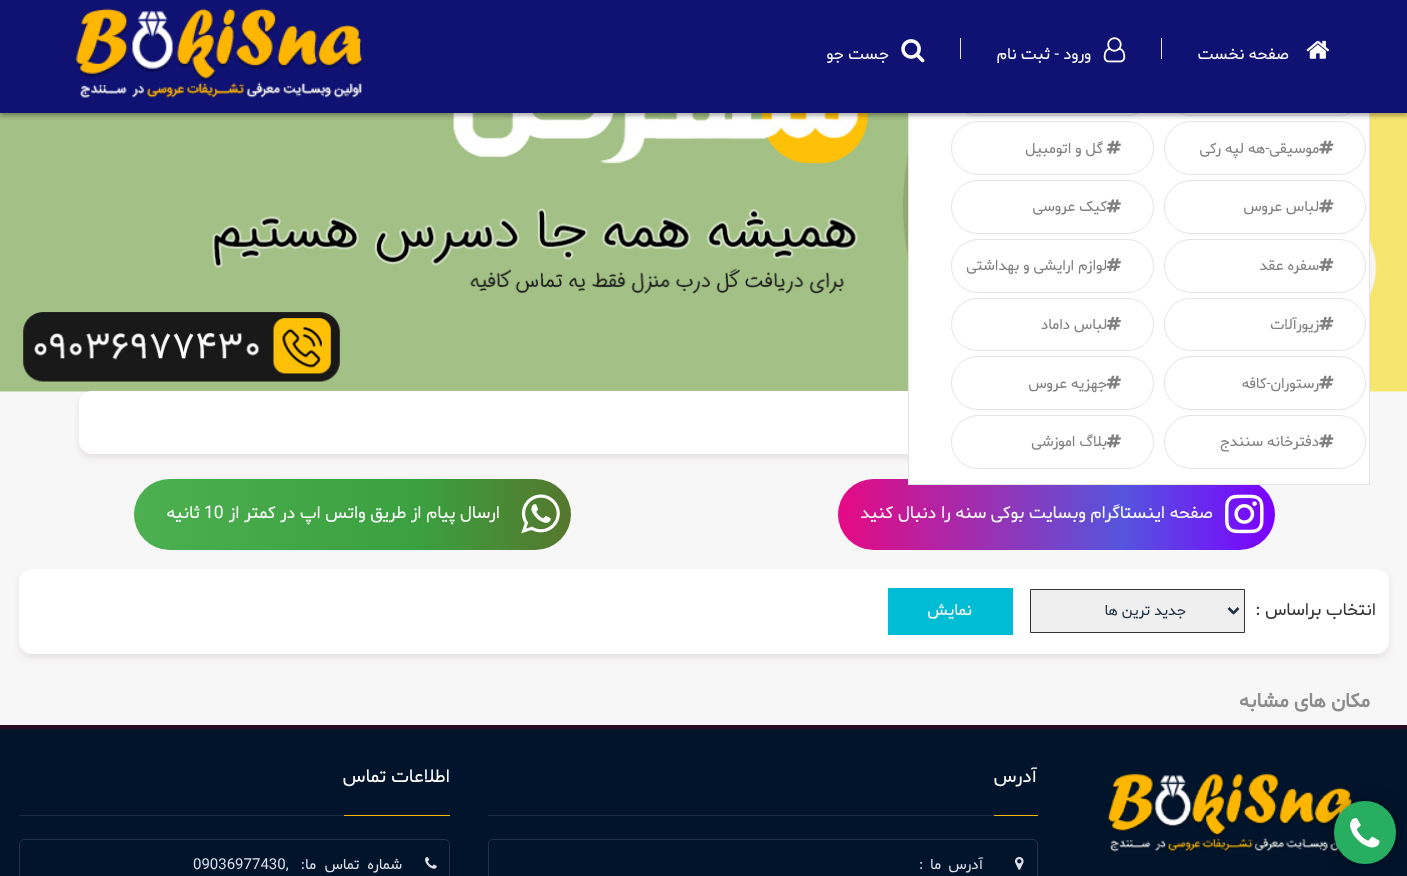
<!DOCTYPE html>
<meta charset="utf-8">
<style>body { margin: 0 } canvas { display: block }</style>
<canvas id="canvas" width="1407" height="876"></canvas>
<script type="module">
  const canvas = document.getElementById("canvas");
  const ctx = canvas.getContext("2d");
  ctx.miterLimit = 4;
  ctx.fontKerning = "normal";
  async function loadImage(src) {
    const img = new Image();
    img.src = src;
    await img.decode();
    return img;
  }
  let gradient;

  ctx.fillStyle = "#f7f7f7";
  ctx.fillRect(0, 0, 1407, 876);
  ctx.drawImage(await loadImage("img5.png"), 0, 113, 1407, 279);
  ctx.fillStyle = "#e7e1e1";
  ctx.filter = "blur(3px)";
  ctx.beginPath();
  ctx.roundRect(79, 395, 1250, 63, 13);
  ctx.fill();
  ctx.filter = "none";
  ctx.fillStyle = "#ffffff";
  ctx.beginPath();
  ctx.roundRect(79, 391, 1250, 63, 13);
  ctx.fill();
  gradient = ctx.createLinearGradient(838, 514, 1275, 514);
  gradient.addColorStop(0, "#e60983");
  gradient.addColorStop(0.65, "#5555dd");
  gradient.addColorStop(1, "#7c00ff");
  ctx.fillStyle = gradient;
  ctx.beginPath();
  ctx.roundRect(838, 479, 437, 71, 35.5);
  ctx.fill();
  ctx.fillStyle = "#ffffff";
  ctx.fillRect(909, 113, 460, 371);
  ctx.strokeStyle = "#e4e4e4";
  ctx.strokeRect(908.5, -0.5, 461, 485);
  ctx.beginPath();
  ctx.roundRect(1164.5, 63.5, 201, 52, 26);
  ctx.stroke();
  ctx.beginPath();
  ctx.roundRect(951.5, 63.5, 202, 52, 26);
  ctx.stroke();
  ctx.beginPath();
  ctx.roundRect(1164.5, 121.5, 201, 53, 26.5);
  ctx.stroke();
  ctx.beginPath();
  ctx.roundRect(951.5, 121.5, 202, 53, 26.5);
  ctx.stroke();
  ctx.fillStyle = "rgba(0, 0, 0, 0.3)";
  ctx.filter = "blur(2px)";
  ctx.beginPath();
  ctx.rect(0, 4, 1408, 112);
  ctx.fill();
  ctx.filter = "none";
  ctx.fillStyle = "#0f1273";
  ctx.fillRect(0, 0, 1407, 113);
  ctx.drawImage(await loadImage("img1.png"), 1306, 40, 23, 19);
  ctx.direction = "rtl";
  ctx.font = "16.25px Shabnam";
  ctx.fillStyle = "#ffffff";
  ctx.fillText("صفحه نخست", 1289, 59);
  ctx.fillStyle = "#e4e4e4";
  ctx.fillRect(1161, 38, 1, 21);
  ctx.drawImage(await loadImage("img2.png"), 1103, 37, 23, 26);
  ctx.fillStyle = "#ffffff";
  ctx.fillText("ورود - ثبت نام", 1091, 59);
  ctx.fillStyle = "#e4e4e4";
  ctx.fillRect(960, 38, 1, 21);
  ctx.drawImage(await loadImage("img3.png"), 901, 39, 24, 24);
  ctx.fillStyle = "#ffffff";
  ctx.fillText("جست جو", 889, 59);
  ctx.drawImage(await loadImage("img4.png"), 76, 8, 287, 91);
  ctx.drawImage(await loadImage("img6.png"), 1319, 140, 15, 14);
  ctx.font = "15px Shabnam";
  ctx.fillStyle = "#808080";
  ctx.fillText("موسیقی-هه لپه رکی", 1319, 153);
  ctx.drawImage(await loadImage("img7.png"), 1106, 140, 15, 14);
  ctx.fillText("گل و اتومبیل", 1103, 153);
  ctx.beginPath();
  ctx.roundRect(1164.5, 180.5, 201, 53, 26.5);
  ctx.stroke();
  ctx.drawImage(await loadImage("img8.png"), 1319, 199, 15, 14);
  ctx.fillText("لباس عروس", 1319, 211);
  ctx.beginPath();
  ctx.roundRect(951.5, 180.5, 202, 53, 26.5);
  ctx.stroke();
  ctx.drawImage(await loadImage("img9.png"), 1106, 199, 15, 14);
  ctx.fillText("کیک عروسی", 1107, 211);
  ctx.beginPath();
  ctx.roundRect(1164.5, 239.5, 201, 53, 26.5);
  ctx.stroke();
  ctx.drawImage(await loadImage("img10.png"), 1319, 258, 15, 14);
  ctx.fillText("سفره عقد", 1319, 270);
  ctx.beginPath();
  ctx.roundRect(951.5, 239.5, 202, 53, 26.5);
  ctx.stroke();
  ctx.drawImage(await loadImage("img11.png"), 1106, 258, 15, 14);
  ctx.fillText("لوازم ارایشی و بهداشتی", 1107, 270);
  ctx.beginPath();
  ctx.roundRect(1164.5, 298.5, 201, 52, 26);
  ctx.stroke();
  ctx.drawImage(await loadImage("img12.png"), 1319, 316, 15, 14);
  ctx.fillText("زیورآلات", 1319, 329);
  ctx.beginPath();
  ctx.roundRect(951.5, 298.5, 202, 52, 26);
  ctx.stroke();
  ctx.drawImage(await loadImage("img13.png"), 1106, 316, 15, 14);
  ctx.fillText("لباس داماد", 1107, 329);
  ctx.beginPath();
  ctx.roundRect(1164.5, 356.5, 201, 53, 26.5);
  ctx.stroke();
  ctx.drawImage(await loadImage("img6.png"), 1319, 375, 15, 14);
  ctx.fillText("رستوران-کافه", 1319, 388);
  ctx.beginPath();
  ctx.roundRect(951.5, 356.5, 202, 53, 26.5);
  ctx.stroke();
  ctx.drawImage(await loadImage("img7.png"), 1106, 375, 15, 14);
  ctx.fillText("جهزیه عروس", 1107, 388);
  ctx.beginPath();
  ctx.roundRect(1164.5, 415.5, 201, 53, 26.5);
  ctx.stroke();
  ctx.drawImage(await loadImage("img8.png"), 1319, 434, 15, 14);
  ctx.fillText("دفترخانه سنندج", 1319, 446);
  ctx.beginPath();
  ctx.roundRect(951.5, 415.5, 202, 53, 26.5);
  ctx.stroke();
  ctx.drawImage(await loadImage("img9.png"), 1106, 434, 15, 14);
  ctx.fillText("بلاگ اموزشی", 1107, 446);
  ctx.drawImage(await loadImage("img14.png"), 1225, 494, 39, 40);
  ctx.font = "17.5px Shabnam";
  ctx.fillStyle = "#ffffff";
  ctx.fillText("صفحه اینستاگرام وبسایت بوکی سنه را دنبال کنید", 1213, 518);
  gradient = ctx.createLinearGradient(134, 514, 571, 514);
  gradient.addColorStop(0, "#4caf50");
  gradient.addColorStop(0.65, "#3ba040");
  gradient.addColorStop(1, "#55772d");
  ctx.fillStyle = gradient;
  ctx.beginPath();
  ctx.roundRect(134, 479, 437, 71, 35.5);
  ctx.fill();
  ctx.drawImage(await loadImage("img15.png"), 521, 494, 39, 40);
  ctx.fillStyle = "#ffffff";
  ctx.fillText("ارسال پیام از طریق واتس اپ در کمتر از", 500, 518);
  ctx.direction = "ltr";
  ctx.fillText("10", 204, 518);
  ctx.direction = "rtl";
  ctx.fillText("ثانیه", 200, 518);
  ctx.fillStyle = "#e7e1e1";
  ctx.filter = "blur(3px)";
  ctx.beginPath();
  ctx.roundRect(19, 573, 1370, 85, 13);
  ctx.fill();
  ctx.filter = "none";
  ctx.fillStyle = "#ffffff";
  ctx.beginPath();
  ctx.roundRect(19, 569, 1370, 85, 13);
  ctx.fill();
  ctx.fillStyle = "#333333";
  ctx.fillText("انتخاب براساس :", 1376, 615);
  ctx.fillStyle = "#efefef";
  ctx.beginPath();
  ctx.rect(1030.5, 589.5, 214, 43);
  ctx.fill();
  ctx.strokeStyle = "#333333";
  ctx.stroke();
  ctx.beginPath();
  ctx.moveTo(1228.5, 608);
  ctx.lineTo(1233.5, 613);
  ctx.lineTo(1238.5, 608);
  ctx.strokeStyle = "#1f3244";
  ctx.lineWidth = 2.5;
  ctx.stroke();
  ctx.font = "15px Shabnam";
  ctx.fillStyle = "#1f3244";
  ctx.fillText("جدید ترین ها", 1186, 615);
  ctx.fillStyle = "#00bcd4";
  ctx.fillRect(888, 588, 125, 47);
  ctx.font = "16.25px Shabnam";
  ctx.fillStyle = "#ffffff";
  ctx.fillText("نمایش", 972, 615);
  ctx.font = "bold 20px Shabnam";
  ctx.fillStyle = "#8c8c8c";
  ctx.fillText("مکان های مشابه", 1370, 707);
  ctx.fillStyle = "#00142b";
  ctx.fillRect(0, 729, 1407, 147);
  ctx.fillStyle = "#290b23";
  ctx.fillRect(0, 725, 1407, 4);
  ctx.drawImage(await loadImage("img17.png"), 1108, 773, 244, 80);
  ctx.fillStyle = "#000000";
  ctx.filter = "blur(12.5px)";
  ctx.beginPath();
  ctx.roundRect(1344, 811, 42, 43, 21);
  ctx.fill();
  ctx.filter = "none";
  ctx.fillStyle = "#27ae60";
  ctx.beginPath();
  ctx.roundRect(1334, 801, 62, 63, 31);
  ctx.fill();
  ctx.drawImage(await loadImage("img16.png"), 1350, 818, 30, 30);
  ctx.fillStyle = "#1a2c40";
  ctx.fillRect(488, 815, 506, 1);
  ctx.fillStyle = "#fab702";
  ctx.fillRect(994, 815, 44, 1);
  ctx.font = "18.75px Shabnam";
  ctx.fillStyle = "#ffffff";
  ctx.fillText("آدرس", 1037, 782);
  ctx.beginPath();
  ctx.roundRect(488.5, 839.5, 549, 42, 4.5);
  ctx.strokeStyle = "#203146";
  ctx.lineWidth = 1;
  ctx.stroke();
  ctx.drawImage(await loadImage("img18.png"), 1015, 857, 9, 13);
  ctx.font = "15px Shabnam";
  ctx.fillStyle = "#dddfeb";
  ctx.fillText("آدرس", 983, 869);
  ctx.fillText("ما", 941, 869);
  ctx.direction = "ltr";
  ctx.fillText(":", 919, 869);
  ctx.fillStyle = "#1a2c40";
  ctx.fillRect(19, 815, 325, 1);
  ctx.fillStyle = "#fab702";
  ctx.fillRect(344, 815, 106, 1);
  ctx.direction = "rtl";
  ctx.font = "18.75px Shabnam";
  ctx.fillStyle = "#ffffff";
  ctx.fillText("اطلاعات تماس", 450, 782);
  ctx.beginPath();
  ctx.roundRect(19.5, 839.5, 430, 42, 4.5);
  ctx.stroke();
  ctx.drawImage(await loadImage("img19.png"), 425, 857, 12, 12);
  ctx.wordSpacing = "4px";
  ctx.font = "15px Shabnam";
  ctx.fillStyle = "#dddfeb";
  ctx.fillText("شماره تماس", 402, 869);
  ctx.wordSpacing = "0px";
  ctx.fillText("ما:", 316, 869);
  ctx.direction = "ltr";
  ctx.fillText("09036977430,", 193, 869);
</script>
